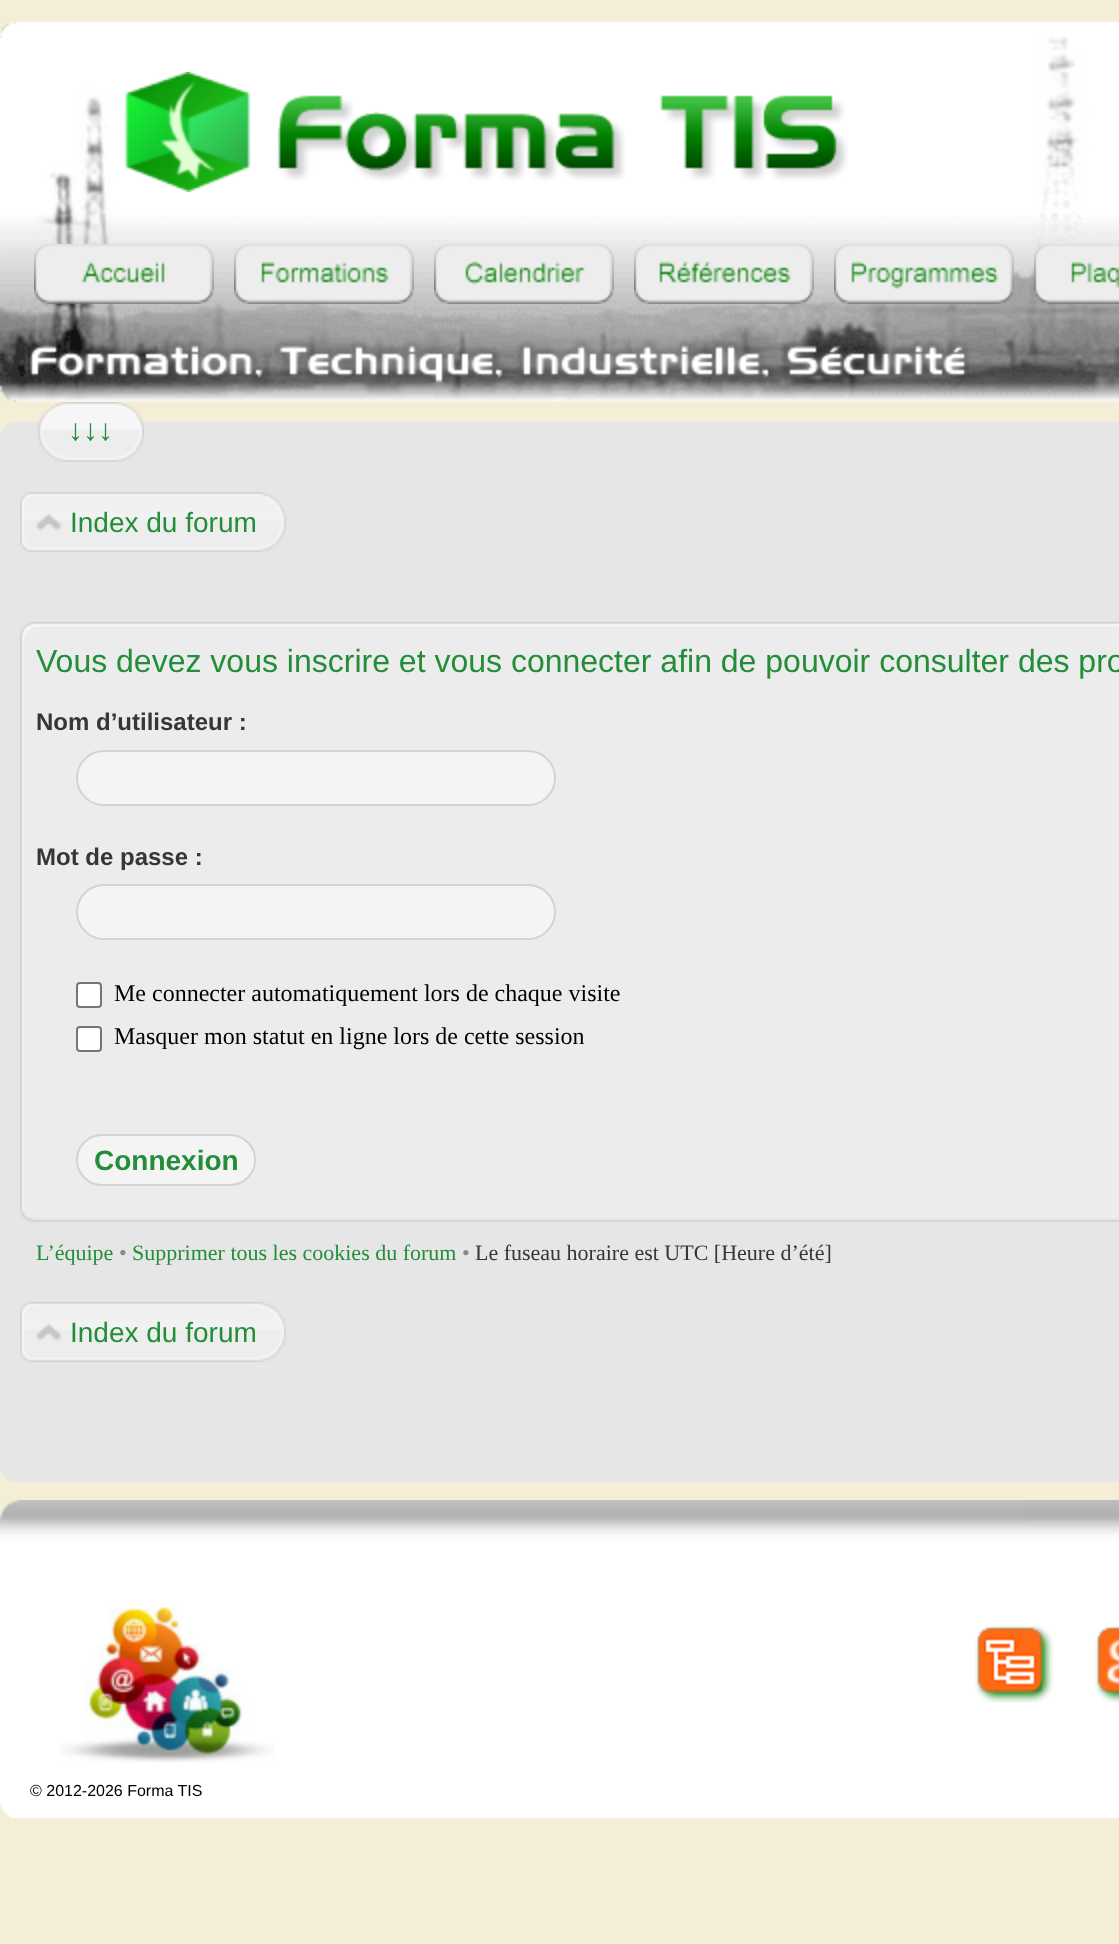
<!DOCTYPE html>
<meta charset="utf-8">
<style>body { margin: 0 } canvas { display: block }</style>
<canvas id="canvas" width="1119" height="1944"></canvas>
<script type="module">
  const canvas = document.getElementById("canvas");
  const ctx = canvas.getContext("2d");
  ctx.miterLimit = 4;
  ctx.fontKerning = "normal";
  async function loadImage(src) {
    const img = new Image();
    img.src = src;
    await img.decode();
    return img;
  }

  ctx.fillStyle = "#f4eed6";
  ctx.fillRect(0, 0, 1119, 1944);
  ctx.drawImage(await loadImage("img1.png"), 0, 22, 1119, 380);
  ctx.drawImage(await loadImage("img2.png"), 125, 72, 126, 120);
  ctx.drawImage(await loadImage("img3.png"), 277, 95, 571, 87);
  ctx.drawImage(await loadImage("img4.png"), 34, 244, 180, 60);
  ctx.drawImage(await loadImage("img5.png"), 234, 244, 180, 60);
  ctx.drawImage(await loadImage("img6.png"), 434, 244, 180, 60);
  ctx.drawImage(await loadImage("img7.png"), 634, 244, 180, 60);
  ctx.drawImage(await loadImage("img8.png"), 834, 244, 180, 60);
  ctx.drawImage(await loadImage("img9.png"), 1034, 244, 85, 60);
  ctx.drawImage(await loadImage("img10.png"), 24, 339, 946, 49);
  ctx.fillStyle = "#e6e6e6";
  ctx.beginPath();
  ctx.roundRect(0, 422, 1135, 1060, 16);
  ctx.fill();
  ctx.drawImage(await loadImage("img11.png"), 38, 402, 76, 60);
  ctx.drawImage(await loadImage("img12.png"), 114, 402, 30, 60);
  ctx.font = "30px Liberation Sans";
  ctx.fillStyle = "#238d39";
  ctx.fillText("↓↓↓", 68, 440);
  ctx.drawImage(await loadImage("img13.png"), 62, 492, 224, 60);
  ctx.drawImage(await loadImage("img14.png"), 20, 492, 42, 60);
  ctx.font = "28px Liberation Sans";
  ctx.fillText("Index du forum", 70, 532);
  ctx.fillStyle = "#ececec";
  ctx.fillRect(23, 625, 1096, 594);
  ctx.drawImage(await loadImage("img15.png"), 20, 622, 1099, 600);
  ctx.font = "32px Liberation Sans";
  ctx.fillStyle = "#238d39";
  ctx.fillText("Vous devez vous inscrire et vous connecter afin de pouvoir consulter des pro", 36, 672);
  ctx.font = "bold 24px Liberation Sans";
  ctx.fillStyle = "#363636";
  ctx.fillText("Nom d’utilisateur :", 36, 730);
  ctx.fillStyle = "#f4f4f4";
  ctx.beginPath();
  ctx.roundRect(77, 751, 478, 54, 27);
  ctx.fill();
  ctx.strokeStyle = "#d3d3d3";
  ctx.lineWidth = 2;
  ctx.stroke();
  ctx.fillStyle = "#363636";
  ctx.fillText("Mot de passe :", 36, 865);
  ctx.fillStyle = "#f4f4f4";
  ctx.beginPath();
  ctx.roundRect(77, 885, 478, 54, 27);
  ctx.fill();
  ctx.stroke();
  ctx.fillStyle = "#ffffff";
  ctx.beginPath();
  ctx.roundRect(77, 983, 24, 24, 3);
  ctx.fill();
  ctx.strokeStyle = "#767676";
  ctx.stroke();
  ctx.font = "24px Liberation Serif";
  ctx.fillStyle = "#000000";
  ctx.fillText("Me connecter automatiquement lors de chaque visite", 114, 1001);
  ctx.fillStyle = "#ffffff";
  ctx.beginPath();
  ctx.roundRect(77, 1027, 24, 24, 3);
  ctx.fill();
  ctx.stroke();
  ctx.fillStyle = "#000000";
  ctx.fillText("Masquer mon statut en ligne lors de cette session", 114, 1044);
  ctx.fillStyle = "#f4f4f4";
  ctx.beginPath();
  ctx.roundRect(77, 1135, 178, 50, 25);
  ctx.fill();
  ctx.strokeStyle = "#d3d3d3";
  ctx.stroke();
  ctx.font = "bold 28px Liberation Sans";
  ctx.fillStyle = "#238d39";
  ctx.fillText("Connexion", 94, 1170);
  ctx.font = "22px Liberation Serif";
  ctx.fillText("L’équipe", 36, 1260);
  ctx.fillStyle = "#888888";
  ctx.fillText("•", 119, 1260);
  ctx.fillStyle = "#238d39";
  ctx.fillText("Supprimer tous les cookies du forum", 132, 1260);
  ctx.fillStyle = "#888888";
  ctx.fillText("•", 462, 1260);
  ctx.fillStyle = "#363636";
  ctx.fillText("Le fuseau horaire est UTC [Heure d’été]", 475, 1260);
  ctx.drawImage(await loadImage("img13.png"), 62, 1302, 224, 60);
  ctx.drawImage(await loadImage("img14.png"), 20, 1302, 42, 60);
  ctx.font = "28px Liberation Sans";
  ctx.fillStyle = "#238d39";
  ctx.fillText("Index du forum", 70, 1342);
  ctx.drawImage(await loadImage("img16.png"), 0, 1500, 1119, 318);
  ctx.drawImage(await loadImage("img17.png"), 59, 1607, 216, 156);
  ctx.drawImage(await loadImage("img18.png"), 975, 1625, 78, 78);
  ctx.drawImage(await loadImage("img19.png"), 1095, 1625, 24, 78);
  ctx.font = "16px Liberation Sans";
  ctx.fillStyle = "#000000";
  ctx.fillText("© 2012-2026 Forma TIS", 30, 1796);
</script>
